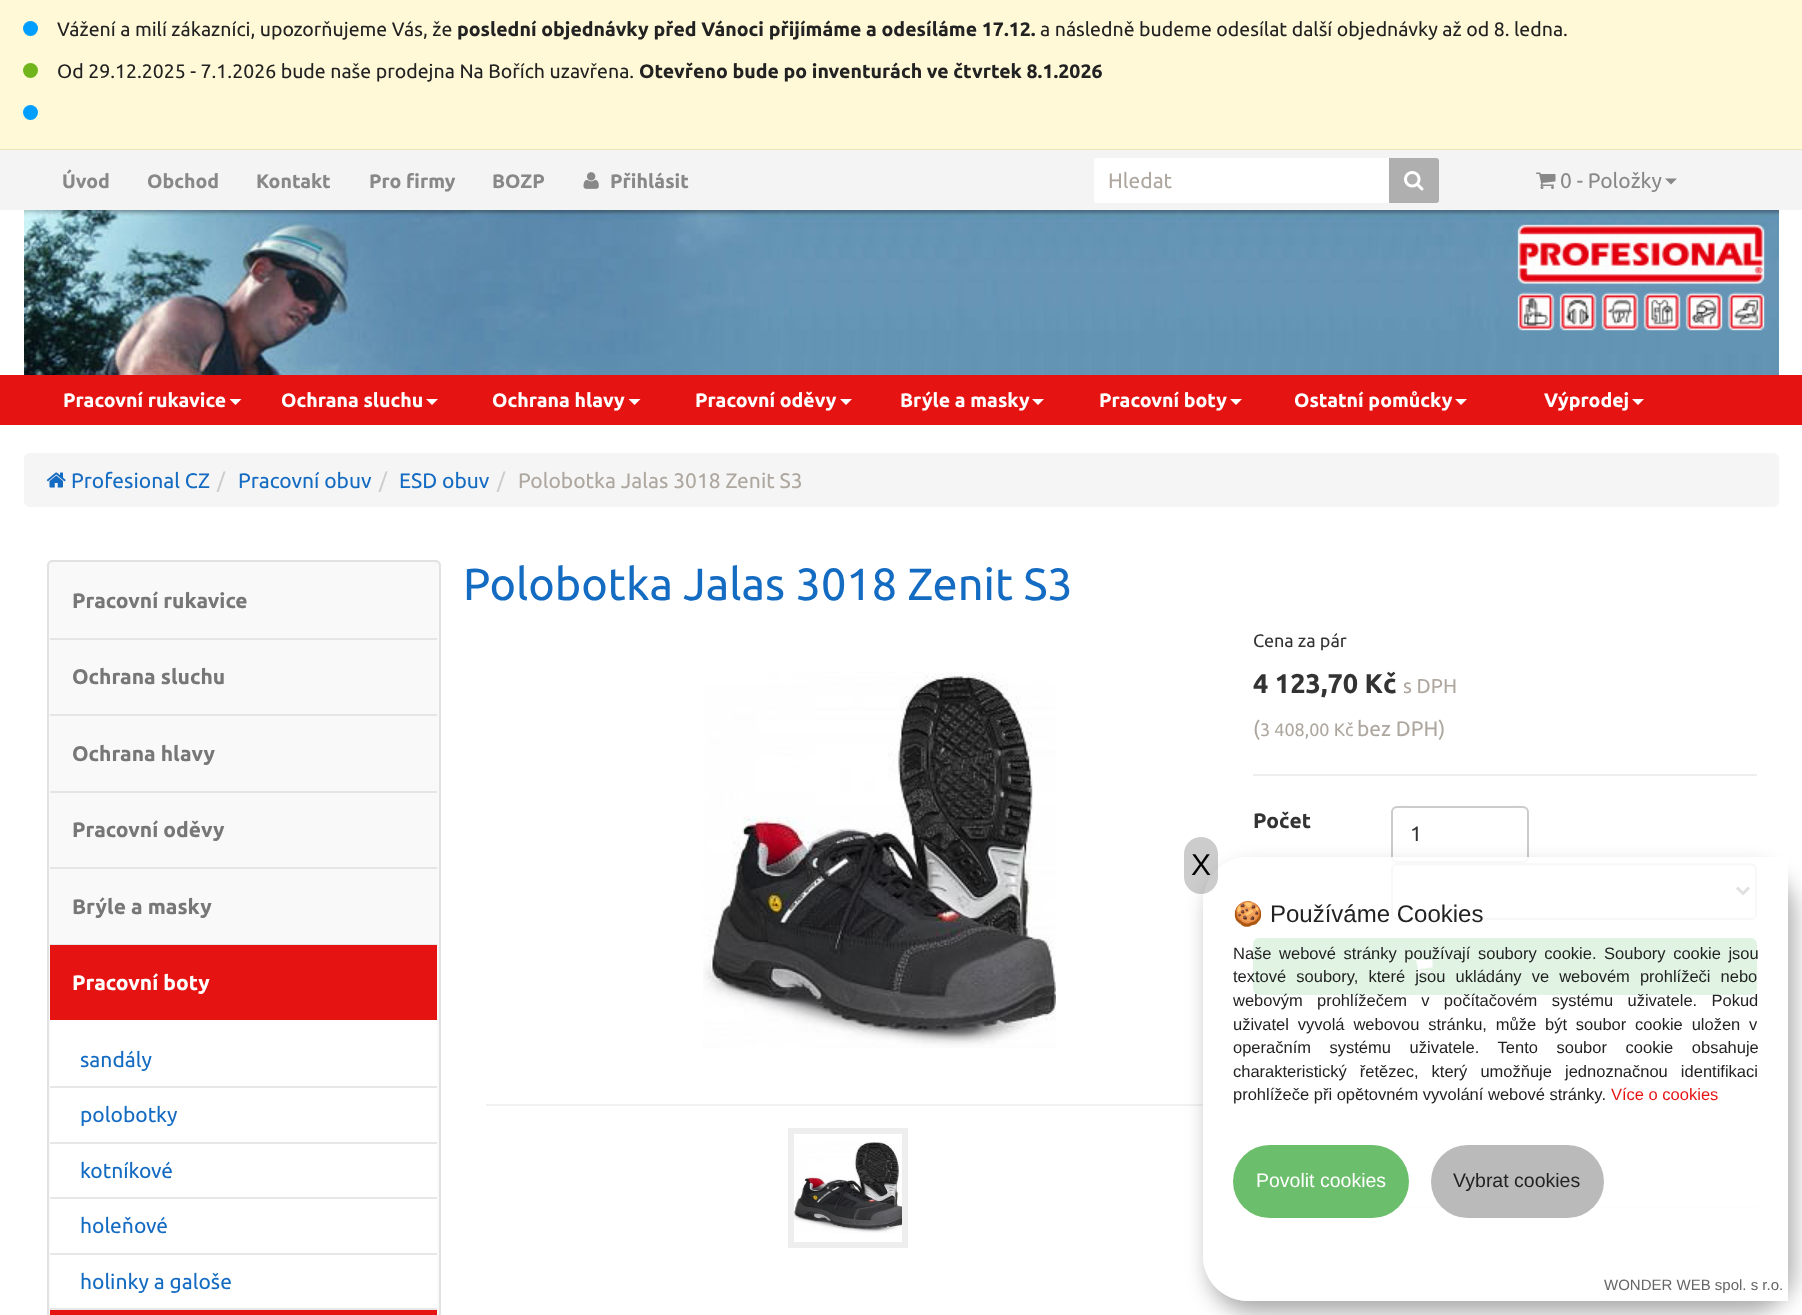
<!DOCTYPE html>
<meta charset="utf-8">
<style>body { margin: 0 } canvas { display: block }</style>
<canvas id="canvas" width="1802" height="1315"></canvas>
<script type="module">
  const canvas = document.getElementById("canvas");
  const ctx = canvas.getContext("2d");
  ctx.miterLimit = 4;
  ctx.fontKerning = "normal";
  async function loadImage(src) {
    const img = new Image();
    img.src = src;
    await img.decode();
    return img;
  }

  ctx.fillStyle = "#ffffff";
  ctx.fillRect(0, 0, 1802, 1315);
  ctx.fillStyle = "#fff9d7";
  ctx.fillRect(0, 0, 1802, 149);
  ctx.fillStyle = "#eae3b8";
  ctx.fillRect(0, 149, 1802, 1);
  ctx.fillStyle = "#009eff";
  ctx.beginPath();
  ctx.arc(30.5, 28.5, 7.5, 0, Math.PI * 2);
  ctx.fill();
  ctx.font = "19.5px Ubuntu";
  ctx.fillStyle = "#222222";
  ctx.fillText("Vážení a milí zákazníci, upozorňujeme Vás, že", 57, 36);
  ctx.font = "bold 19.5px Ubuntu";
  ctx.fillText("poslední objednávky před Vánoci přijímáme a odesíláme 17.12.", 457, 36);
  ctx.font = "19.5px Ubuntu";
  ctx.fillText("a následně budeme odesílat další objednávky až od 8. ledna.", 1040, 36);
  ctx.fillStyle = "#70b51b";
  ctx.beginPath();
  ctx.arc(30.5, 70.5, 7.5, 0, Math.PI * 2);
  ctx.fill();
  ctx.fillStyle = "#222222";
  ctx.fillText("Od 29.12.2025 - 7.1.2026 bude naše prodejna Na Bořích uzavřena.", 57, 78);
  ctx.font = "bold 19.5px Ubuntu";
  ctx.fillText("Otevřeno bude po inventurách ve čtvrtek 8.1.2026", 639, 78);
  ctx.fillStyle = "#009eff";
  ctx.beginPath();
  ctx.arc(30.5, 112.5, 7.5, 0, Math.PI * 2);
  ctx.fill();
  ctx.fillStyle = "#f4f4f4";
  ctx.fillRect(0, 150, 1802, 60);
  ctx.fillStyle = "#888888";
  ctx.fillText("Úvod", 62, 188);
  ctx.fillText("Obchod", 147, 188);
  ctx.fillText("Kontakt", 256, 188);
  ctx.fillText("Pro firmy", 369, 188);
  ctx.fillText("BOZP", 492, 188);
  ctx.drawImage(await loadImage("img1.png"), 583, 172, 16, 17);
  ctx.fillText("Přihlásit", 610, 188);
  ctx.fillStyle = "#ffffff";
  ctx.beginPath();
  ctx.roundRect(1094, 158, 297, 45, [3, 0, 0, 3]);
  ctx.fill();
  ctx.font = "21px Ubuntu";
  ctx.fillStyle = "#aea79f";
  ctx.fillText("Hledat", 1108, 188);
  ctx.fillStyle = "#afafaf";
  ctx.beginPath();
  ctx.roundRect(1389, 158, 50, 45, [0, 3, 3, 0]);
  ctx.fill();
  ctx.drawImage(await loadImage("img2.png"), 1404, 171, 20, 20);
  ctx.drawImage(await loadImage("img3.png"), 1536, 172, 20, 17);
  ctx.fillStyle = "#888888";
  ctx.fillText("0 - Položky", 1560, 188);
  ctx.beginPath();
  ctx.moveTo(1665, 178.5);
  ctx.lineTo(1677, 178.5);
  ctx.lineTo(1671, 184.5);
  ctx.closePath();
  ctx.fill();
  ctx.drawImage(await loadImage("img4.png"), 24, 210, 1755, 165);
  ctx.fillStyle = "#e61313";
  ctx.fillRect(0, 375, 1802, 50);
  ctx.font = "bold 19.5px Ubuntu";
  ctx.fillStyle = "#ffffff";
  ctx.fillText("Pracovní rukavice", 63, 407);
  ctx.beginPath();
  ctx.moveTo(229.5, 399);
  ctx.lineTo(241.5, 399);
  ctx.lineTo(235.5, 405);
  ctx.closePath();
  ctx.fill();
  ctx.fillText("Ochrana sluchu", 281, 407);
  ctx.beginPath();
  ctx.moveTo(426, 399);
  ctx.lineTo(438, 399);
  ctx.lineTo(432, 405);
  ctx.closePath();
  ctx.fill();
  ctx.fillText("Ochrana hlavy", 492, 407);
  ctx.beginPath();
  ctx.moveTo(628.5, 399);
  ctx.lineTo(640.5, 399);
  ctx.lineTo(634.5, 405);
  ctx.closePath();
  ctx.fill();
  ctx.fillText("Pracovní oděvy", 695, 407);
  ctx.beginPath();
  ctx.moveTo(840, 399);
  ctx.lineTo(852, 399);
  ctx.lineTo(846, 405);
  ctx.closePath();
  ctx.fill();
  ctx.fillText("Brýle a masky", 900, 407);
  ctx.beginPath();
  ctx.moveTo(1032, 399);
  ctx.lineTo(1044, 399);
  ctx.lineTo(1038, 405);
  ctx.closePath();
  ctx.fill();
  ctx.fillText("Pracovní boty", 1099, 407);
  ctx.beginPath();
  ctx.moveTo(1230, 399);
  ctx.lineTo(1242, 399);
  ctx.lineTo(1236, 405);
  ctx.closePath();
  ctx.fill();
  ctx.fillText("Ostatní pomůcky", 1294, 407);
  ctx.beginPath();
  ctx.moveTo(1455, 399);
  ctx.lineTo(1467, 399);
  ctx.lineTo(1461, 405);
  ctx.closePath();
  ctx.fill();
  ctx.fillText("Výprodej", 1544, 407);
  ctx.beginPath();
  ctx.moveTo(1632, 399);
  ctx.lineTo(1644, 399);
  ctx.lineTo(1638, 405);
  ctx.closePath();
  ctx.fill();
  ctx.fillStyle = "#f5f5f5";
  ctx.beginPath();
  ctx.roundRect(24, 453, 1755, 54, 6);
  ctx.fill();
  ctx.drawImage(await loadImage("img5.png"), 46, 472, 20, 16);
  ctx.font = "21px Ubuntu";
  ctx.fillStyle = "#146bc2";
  ctx.fillText("Profesional CZ", 71, 488);
  ctx.fillStyle = "#cccccc";
  ctx.fillText("/", 217, 488);
  ctx.fillStyle = "#146bc2";
  ctx.fillText("Pracovní obuv", 238, 488);
  ctx.fillStyle = "#cccccc";
  ctx.fillText("/", 379, 488);
  ctx.fillStyle = "#146bc2";
  ctx.fillText("ESD obuv", 399, 488);
  ctx.fillStyle = "#cccccc";
  ctx.fillText("/", 497, 488);
  ctx.fillStyle = "#aea79f";
  ctx.fillText("Polobotka Jalas 3018 Zenit S3", 518, 488);
  ctx.beginPath();
  ctx.roundRect(48, 561, 392, 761, 5);
  ctx.strokeStyle = "#dddddd";
  ctx.lineWidth = 2;
  ctx.stroke();
  ctx.fillStyle = "#f9f9f9";
  ctx.beginPath();
  ctx.roundRect(48, 561, 392, 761, 5);
  ctx.fill();
  ctx.strokeStyle = "#e2e2e2";
  ctx.stroke();
  ctx.fillStyle = "#e5e5e5";
  ctx.fillRect(50, 638, 387, 2);
  ctx.font = "bold 21px Ubuntu";
  ctx.fillStyle = "#777777";
  ctx.fillText("Pracovní rukavice", 72, 608);
  ctx.fillStyle = "#e5e5e5";
  ctx.fillRect(50, 714, 387, 2);
  ctx.fillStyle = "#777777";
  ctx.fillText("Ochrana sluchu", 72, 684);
  ctx.fillStyle = "#e5e5e5";
  ctx.fillRect(50, 791, 387, 2);
  ctx.fillStyle = "#777777";
  ctx.fillText("Ochrana hlavy", 72, 761);
  ctx.fillStyle = "#e5e5e5";
  ctx.fillRect(50, 867, 387, 2);
  ctx.fillStyle = "#777777";
  ctx.fillText("Pracovní oděvy", 72, 837);
  ctx.fillStyle = "#e5e5e5";
  ctx.fillRect(50, 944, 387, 1);
  ctx.fillStyle = "#777777";
  ctx.fillText("Brýle a masky", 72, 914);
  ctx.fillStyle = "#e61313";
  ctx.fillRect(50, 945, 387, 75);
  ctx.fillStyle = "#ffffff";
  ctx.fillText("Pracovní boty", 72, 990);
  ctx.fillRect(50, 1020, 387, 288);
  ctx.fillStyle = "#e7e7e7";
  ctx.fillRect(50, 1086, 387, 2);
  ctx.font = "21px Ubuntu";
  ctx.fillStyle = "#146bc2";
  ctx.fillText("sandály", 80, 1067);
  ctx.fillStyle = "#e7e7e7";
  ctx.fillRect(50, 1142, 387, 2);
  ctx.fillStyle = "#146bc2";
  ctx.fillText("polobotky", 80, 1122);
  ctx.fillStyle = "#e7e7e7";
  ctx.fillRect(50, 1197, 387, 2);
  ctx.fillStyle = "#146bc2";
  ctx.fillText("kotníkové", 80, 1178);
  ctx.fillStyle = "#e7e7e7";
  ctx.fillRect(50, 1253, 387, 2);
  ctx.fillStyle = "#146bc2";
  ctx.fillText("holeňové", 80, 1233);
  ctx.fillStyle = "#e7e7e7";
  ctx.fillRect(50, 1308, 387, 2);
  ctx.fillStyle = "#146bc2";
  ctx.fillText("holinky a galoše", 80, 1289);
  ctx.fillStyle = "#e61313";
  ctx.fillRect(50, 1310, 387, 5);
  ctx.font = "45px Ubuntu";
  ctx.fillStyle = "#146bc2";
  ctx.fillText("Polobotka Jalas 3018 Zenit S3", 463, 600);
  ctx.drawImage(await loadImage("img6.png"), 703, 672, 353, 376);
  ctx.fillStyle = "#f2f2f2";
  ctx.fillRect(486, 1104, 722, 2);
  ctx.strokeStyle = "#eeeeee";
  ctx.lineWidth = 6;
  ctx.strokeRect(791, 1131, 114, 114);
  ctx.drawImage(await loadImage("img7.png"), 794, 1141, 108, 92);
  ctx.font = "18px Ubuntu";
  ctx.fillStyle = "#333333";
  ctx.fillText("Cena za pár", 1253, 647);
  ctx.font = "bold 27px Ubuntu";
  ctx.fillText("4 123,70 Kč", 1253, 693);
  ctx.font = "20px Ubuntu";
  ctx.fillStyle = "#aea79f";
  ctx.fillText("s DPH", 1403, 693);
  ctx.font = "21px Ubuntu";
  ctx.fillText("(", 1253, 736);
  ctx.font = "18px Ubuntu";
  ctx.fillText("3 408,00 Kč", 1260, 736);
  ctx.font = "21px Ubuntu";
  ctx.fillText("bez DPH)", 1357, 736);
  ctx.fillStyle = "#eeeeee";
  ctx.fillRect(1253, 774, 504, 2);
  ctx.font = "bold 21px Ubuntu";
  ctx.fillStyle = "#333333";
  ctx.fillText("Počet", 1253, 828);
  ctx.fillStyle = "#ececec";
  ctx.beginPath();
  ctx.moveTo(1396, 808);
  ctx.lineTo(1522, 808);
  ctx.bezierCurveTo(1525, 808, 1527, 811, 1527, 813);
  ctx.bezierCurveTo(1527, 802, 1505, 807, 1501, 807);
  ctx.lineTo(1418, 807);
  ctx.bezierCurveTo(1414, 807, 1392, 802, 1392, 813);
  ctx.bezierCurveTo(1392, 811, 1394, 808, 1396, 808);
  ctx.closePath();
  ctx.fill();
  ctx.beginPath();
  ctx.roundRect(1392, 807, 136, 55, 5);
  ctx.strokeStyle = "#cccccc";
  ctx.lineWidth = 2;
  ctx.stroke();
  ctx.font = "21px Ubuntu";
  ctx.fillStyle = "#333333";
  ctx.fillText("1", 1410, 841);
  ctx.fillStyle = "#ececec";
  ctx.beginPath();
  ctx.moveTo(1396, 866);
  ctx.lineTo(1750, 866);
  ctx.bezierCurveTo(1753, 866, 1755, 868, 1755, 870);
  ctx.lineTo(1755, 869);
  ctx.bezierCurveTo(1755, 866, 1753, 864, 1750, 864);
  ctx.lineTo(1397, 864);
  ctx.bezierCurveTo(1394, 864, 1392, 866, 1392, 869);
  ctx.lineTo(1392, 870);
  ctx.bezierCurveTo(1392, 868, 1394, 866, 1396, 866);
  ctx.closePath();
  ctx.fill();
  ctx.beginPath();
  ctx.roundRect(1392, 864, 364, 55, 5);
  ctx.stroke();
  ctx.beginPath();
  ctx.moveTo(1737, 887.5);
  ctx.lineTo(1743, 893.5);
  ctx.lineTo(1749, 887.5);
  ctx.strokeStyle = "#333333";
  ctx.lineWidth = 3;
  ctx.stroke();
  ctx.fillStyle = "#38b44a";
  ctx.beginPath();
  ctx.roundRect(1254, 939, 502, 55, 5);
  ctx.fill();
  ctx.strokeStyle = "#38b44a";
  ctx.lineWidth = 2;
  ctx.stroke();
  ctx.drawImage(await loadImage("img8.png"), 1413, 958, 20, 17);
  ctx.fillStyle = "#eeeeee";
  ctx.fillRect(1253, 1025, 504, 2);
  ctx.fillRect(1397, 1206, 360, 2);
  ctx.fillRect(1253, 1298, 348, 2);
  ctx.save();
  ctx.beginPath();
  ctx.moveTo(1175, 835);
  ctx.lineTo(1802, 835);
  ctx.lineTo(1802, 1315);
  ctx.lineTo(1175, 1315);
  ctx.closePath();
  ctx.moveTo(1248, 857);
  ctx.lineTo(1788, 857);
  ctx.lineTo(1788, 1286);
  ctx.bezierCurveTo(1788, 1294.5, 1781.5, 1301, 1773, 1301);
  ctx.lineTo(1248, 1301);
  ctx.bezierCurveTo(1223, 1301, 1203, 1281, 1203, 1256);
  ctx.lineTo(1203, 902);
  ctx.bezierCurveTo(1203, 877, 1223, 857, 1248, 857);
  ctx.closePath();
  ctx.clip("evenodd");
  ctx.fillStyle = "rgba(0, 0, 0, 0.33)";
  ctx.filter = "blur(11px)";
  ctx.beginPath();
  ctx.roundRect(1209, 869, 585, 444, 45);
  ctx.fill();
  ctx.filter = "none";
  ctx.restore();
  ctx.fillStyle = "rgba(255, 255, 255, 0.85)";
  ctx.beginPath();
  ctx.roundRect(1203, 857, 585, 444, [45, 0, 15, 45]);
  ctx.fill();
  ctx.fillStyle = "rgba(0, 0, 0, 0.2)";
  ctx.beginPath();
  ctx.roundRect(1184, 837, 34, 57, 17);
  ctx.fill();
  ctx.font = "30px Liberation Sans";
  ctx.fillStyle = "#000000";
  ctx.fillText("X", 1191, 875);
  ctx.font = "24px Noto Color Emoji";
  ctx.fillStyle = "#222222";
  ctx.fillText("🍪", 1233, 922);
  ctx.font = "24px Liberation Sans";
  ctx.fillText("Používáme Cookies", 1270, 922);
  ctx.wordSpacing = "3px";
  ctx.font = "16.5px Liberation Sans";
  ctx.fillText("Naše webové stránky používají soubory cookie. Soubory cookie jsou", 1233, 959);
  ctx.wordSpacing = "5.5px";
  ctx.fillText("textové soubory, které jsou ukládány ve webovém prohlížeči nebo", 1233, 982);
  ctx.wordSpacing = "9.75px";
  ctx.fillText("webovým prohlížečem v počítačovém systému uživatele. Pokud", 1233, 1006);
  ctx.wordSpacing = "4.25px";
  ctx.fillText("uživatel vyvolá webovou stránku, může být soubor cookie uložen v", 1233, 1030);
  ctx.wordSpacing = "14px";
  ctx.fillText("operačním systému uživatele. Tento soubor cookie obsahuje", 1233, 1053);
  ctx.wordSpacing = "8.5px";
  ctx.fillText("charakteristický řetězec, který umožňuje jednoznačnou identifikaci", 1233, 1077);
  ctx.wordSpacing = "0px";
  ctx.fillText("prohlížeče při opětovném vyvolání webové stránky.", 1233, 1100);
  ctx.fillStyle = "#e61313";
  ctx.fillText("Více o cookies", 1611, 1100);
  ctx.fillStyle = "#6bbe6b";
  ctx.beginPath();
  ctx.roundRect(1233, 1145, 176, 73, 36.5);
  ctx.fill();
  ctx.font = "19.5px Liberation Sans";
  ctx.fillStyle = "#ffffff";
  ctx.fillText("Povolit cookies", 1256, 1187);
  ctx.fillStyle = "#bababa";
  ctx.beginPath();
  ctx.roundRect(1431, 1145, 173, 73, 36.5);
  ctx.fill();
  ctx.fillStyle = "#222222";
  ctx.fillText("Vybrat cookies", 1453, 1187);
  ctx.fillStyle = "#ffffff";
  ctx.fillRect(1601, 1288, 187, 13);
  ctx.font = "15px Liberation Sans";
  ctx.fillStyle = "#666666";
  ctx.fillText("WONDER WEB spol. s r.o.", 1604, 1290);
</script>
